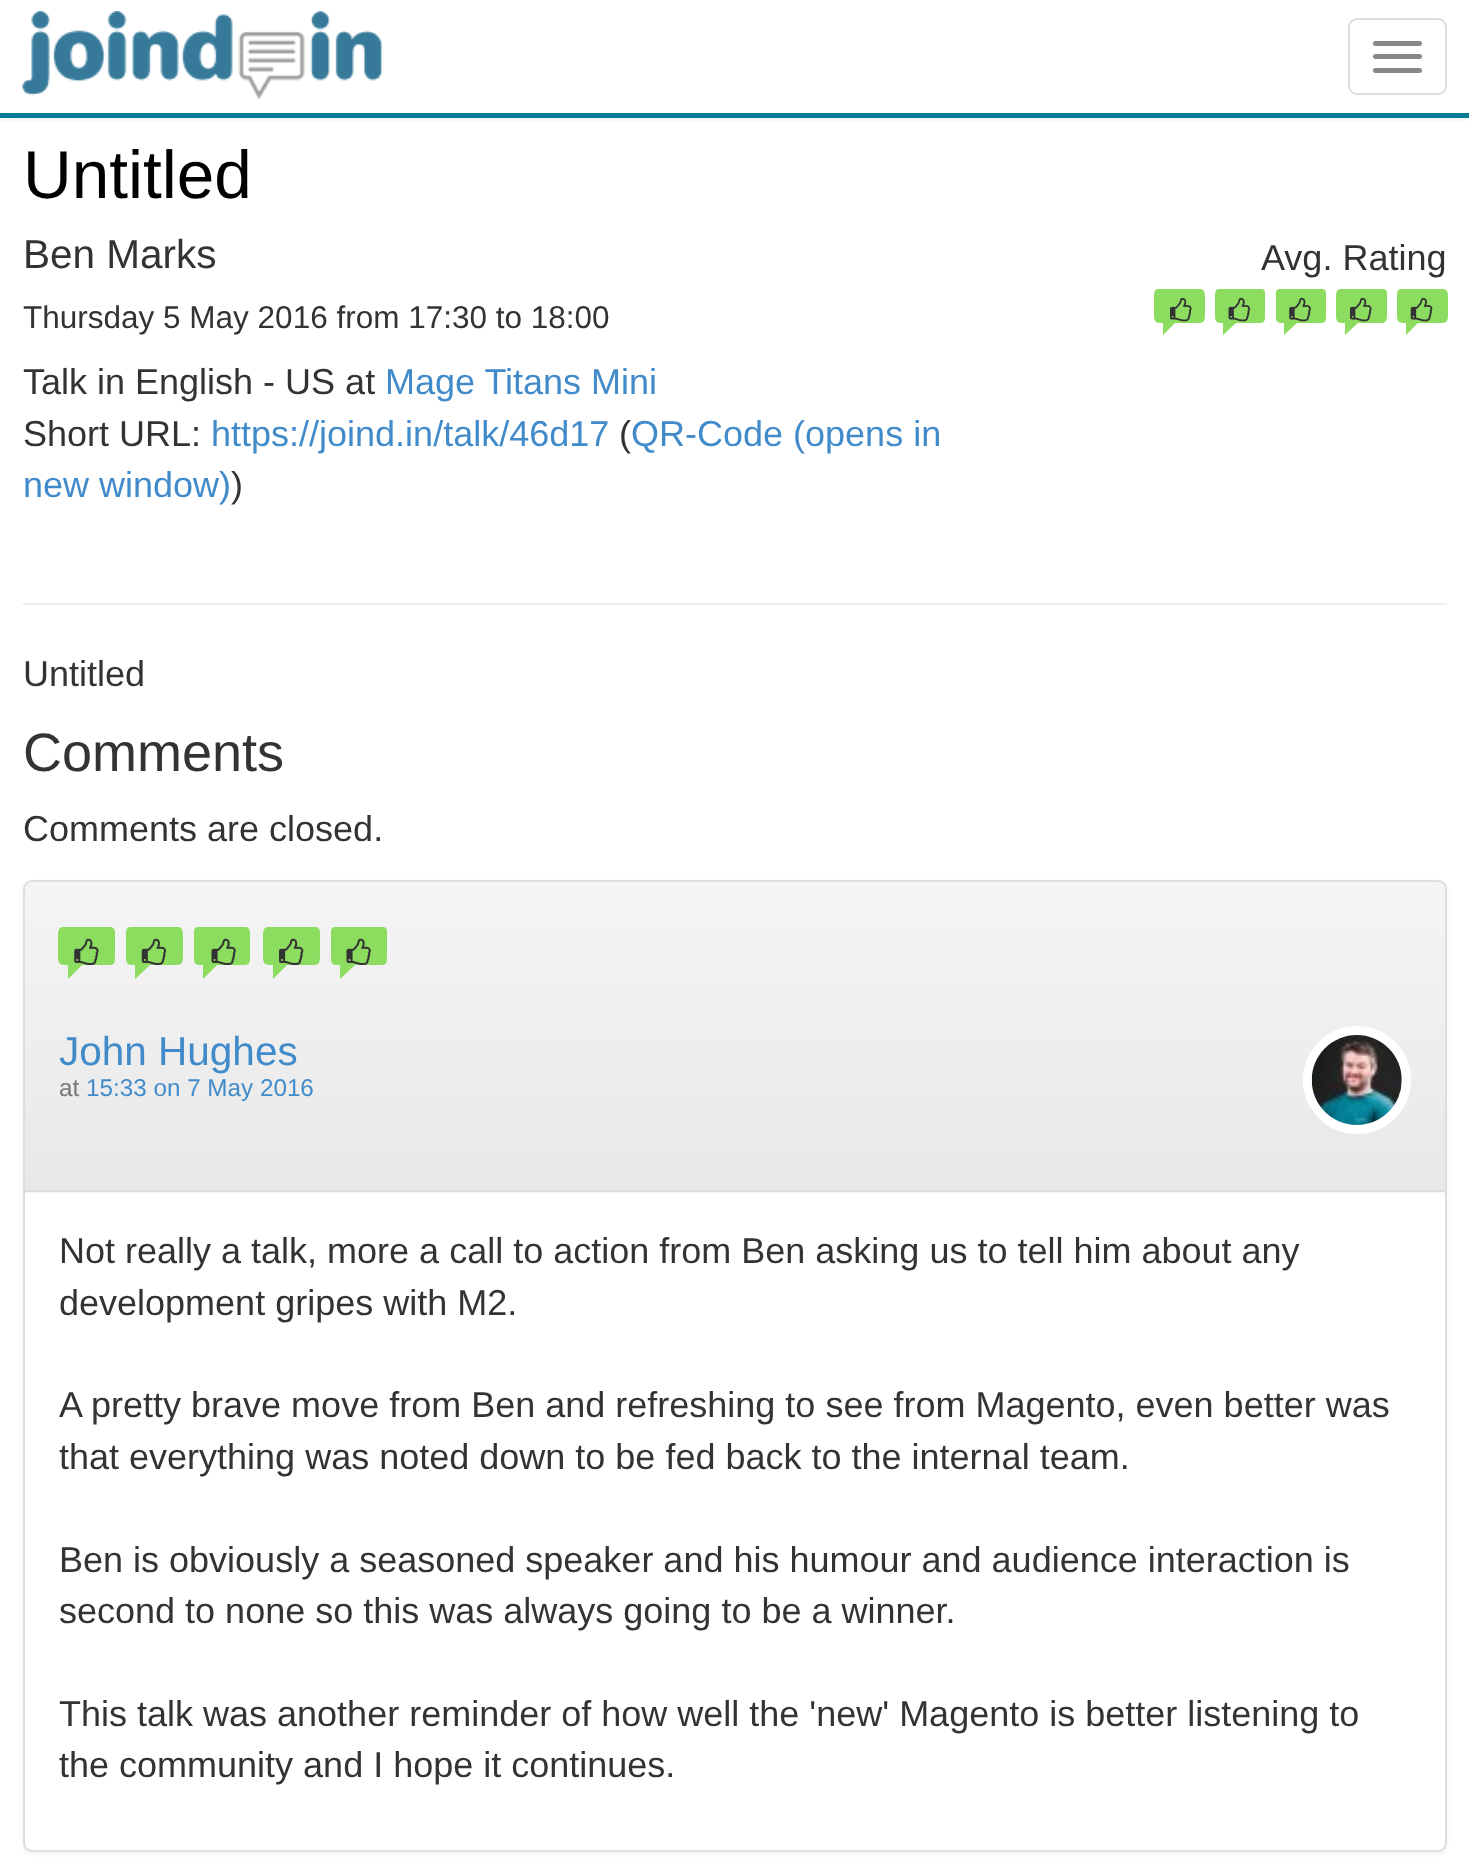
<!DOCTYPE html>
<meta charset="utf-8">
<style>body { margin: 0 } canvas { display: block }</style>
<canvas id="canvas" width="1469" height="1874"></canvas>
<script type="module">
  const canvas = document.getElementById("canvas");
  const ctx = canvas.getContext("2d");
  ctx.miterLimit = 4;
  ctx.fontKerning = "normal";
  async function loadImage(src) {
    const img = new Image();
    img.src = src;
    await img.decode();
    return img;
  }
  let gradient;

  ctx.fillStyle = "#ffffff";
  ctx.fillRect(0, 0, 1469, 1874);
  ctx.save();
  ctx.beginPath();
  ctx.rect(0, 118, 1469, 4);
  ctx.clip();
  ctx.fillStyle = "rgba(0, 0, 0, 0.07)";
  ctx.filter = "blur(5.5px)";
  ctx.beginPath();
  ctx.rect(0, 2, 1469, 117);
  ctx.fill();
  ctx.filter = "none";
  ctx.restore();
  ctx.fillStyle = "#007b97";
  ctx.fillRect(0, 113, 1469, 5);
  ctx.drawImage(await loadImage("img1.png"), 22, 11, 361, 89);
  ctx.beginPath();
  ctx.roundRect(1349, 19, 97, 75, 8);
  ctx.strokeStyle = "#dddddd";
  ctx.lineWidth = 2;
  ctx.stroke();
  ctx.fillStyle = "#888888";
  ctx.beginPath();
  ctx.roundRect(1373, 41, 49, 5, 2.5);
  ctx.fill();
  ctx.beginPath();
  ctx.roundRect(1373, 54, 49, 5, 2.5);
  ctx.fill();
  ctx.beginPath();
  ctx.roundRect(1373, 68, 49, 5, 2.5);
  ctx.fill();
  ctx.fillStyle = "#eeeeee";
  ctx.fillRect(23, 603, 1424, 2);
  ctx.font = "67.5px Liberation Sans";
  ctx.fillStyle = "#000000";
  ctx.fillText("Untitled", 23, 198);
  ctx.font = "40.5px Liberation Sans";
  ctx.fillStyle = "#333333";
  ctx.fillText("Ben Marks", 23, 268);
  ctx.font = "31.5px Liberation Sans";
  ctx.fillText("Thursday 5 May 2016 from 17:30 to 18:00", 23, 328);
  ctx.font = "36px Liberation Sans";
  ctx.fillText("Talk in English - US at", 23, 394);
  ctx.fillStyle = "#428bca";
  ctx.fillText("Mage Titans Mini", 385, 394);
  ctx.fillStyle = "#333333";
  ctx.fillText("Short URL:", 23, 446);
  ctx.fillStyle = "#428bca";
  ctx.fillText("https://joind.in/talk/46d17", 211, 446);
  ctx.fillStyle = "#333333";
  ctx.fillText("(", 619, 446);
  ctx.fillStyle = "#428bca";
  ctx.fillText("QR-Code (opens in", 631, 446);
  ctx.fillText("new window)", 23, 497);
  ctx.fillStyle = "#333333";
  ctx.fillText(")", 231, 497);
  ctx.fillText("Avg. Rating", 1261, 270);
  ctx.fillStyle = "#8cdc60";
  ctx.beginPath();
  ctx.moveTo(1158, 289);
  ctx.lineTo(1201, 289);
  ctx.bezierCurveTo(1205, 290, 1205, 294, 1205, 297);
  ctx.lineTo(1205, 314);
  ctx.bezierCurveTo(1205, 322, 1204, 323, 1196, 323);
  ctx.lineTo(1175, 323);
  ctx.lineTo(1163, 335);
  ctx.lineTo(1163, 323);
  ctx.bezierCurveTo(1155, 323, 1154, 322, 1154, 314);
  ctx.lineTo(1154, 297);
  ctx.bezierCurveTo(1154, 294, 1154, 289, 1158, 289);
  ctx.closePath();
  ctx.fill();
  ctx.drawImage(await loadImage("img2.png"), 1170, 297, 22, 25);
  ctx.beginPath();
  ctx.moveTo(1219, 289);
  ctx.lineTo(1262, 289);
  ctx.bezierCurveTo(1266, 290, 1265, 294, 1265, 297);
  ctx.lineTo(1265, 314);
  ctx.bezierCurveTo(1265, 322, 1265, 323, 1257, 323);
  ctx.lineTo(1236, 323);
  ctx.lineTo(1223, 335);
  ctx.lineTo(1223, 323);
  ctx.bezierCurveTo(1216, 323, 1215, 322, 1215, 314);
  ctx.lineTo(1215, 297);
  ctx.bezierCurveTo(1215, 294, 1215, 289, 1219, 289);
  ctx.closePath();
  ctx.fill();
  ctx.drawImage(await loadImage("img3.png"), 1228, 297, 23, 25);
  ctx.beginPath();
  ctx.moveTo(1280, 289);
  ctx.lineTo(1323, 289);
  ctx.bezierCurveTo(1327, 290, 1326, 294, 1326, 297);
  ctx.lineTo(1326, 314);
  ctx.bezierCurveTo(1326, 322, 1326, 323, 1318, 323);
  ctx.lineTo(1297, 323);
  ctx.lineTo(1284, 335);
  ctx.lineTo(1284, 323);
  ctx.bezierCurveTo(1276, 323, 1276, 322, 1276, 314);
  ctx.lineTo(1276, 297);
  ctx.bezierCurveTo(1276, 294, 1275, 289, 1280, 289);
  ctx.closePath();
  ctx.fill();
  ctx.drawImage(await loadImage("img4.png"), 1289, 297, 22, 25);
  ctx.beginPath();
  ctx.moveTo(1341, 289);
  ctx.lineTo(1384, 289);
  ctx.bezierCurveTo(1388, 290, 1387, 294, 1387, 297);
  ctx.lineTo(1387, 314);
  ctx.bezierCurveTo(1387, 322, 1386, 323, 1379, 323);
  ctx.lineTo(1358, 323);
  ctx.lineTo(1345, 335);
  ctx.lineTo(1345, 323);
  ctx.bezierCurveTo(1337, 323, 1336, 322, 1336, 314);
  ctx.lineTo(1336, 297);
  ctx.bezierCurveTo(1336, 294, 1336, 289, 1341, 289);
  ctx.closePath();
  ctx.fill();
  ctx.drawImage(await loadImage("img2.png"), 1350, 297, 22, 25);
  ctx.beginPath();
  ctx.moveTo(1401, 289);
  ctx.lineTo(1444, 289);
  ctx.bezierCurveTo(1448, 290, 1448, 294, 1448, 297);
  ctx.lineTo(1448, 314);
  ctx.bezierCurveTo(1448, 322, 1447, 323, 1439, 323);
  ctx.lineTo(1418, 323);
  ctx.lineTo(1406, 335);
  ctx.lineTo(1406, 323);
  ctx.bezierCurveTo(1398, 323, 1397, 322, 1397, 314);
  ctx.lineTo(1397, 297);
  ctx.bezierCurveTo(1397, 294, 1397, 289, 1401, 289);
  ctx.closePath();
  ctx.fill();
  ctx.drawImage(await loadImage("img5.png"), 1410, 297, 23, 25);
  ctx.fillStyle = "#333333";
  ctx.fillText("Untitled", 23, 686);
  ctx.font = "54px Liberation Sans";
  ctx.fillText("Comments", 23, 771);
  ctx.font = "36px Liberation Sans";
  ctx.fillText("Comments are closed.", 23, 841);
  ctx.fillStyle = "rgba(0, 0, 0, 0.05)";
  ctx.filter = "blur(2px)";
  ctx.beginPath();
  ctx.roundRect(23, 882, 1424, 972, 9);
  ctx.fill();
  ctx.filter = "none";
  ctx.fillStyle = "#ffffff";
  ctx.beginPath();
  ctx.roundRect(24, 881, 1422, 970, 8);
  ctx.fill();
  ctx.stroke();
  ctx.fillStyle = "#f5f5f5";
  ctx.beginPath();
  ctx.roundRect(25, 882, 1420, 311, [7, 7, 0, 0]);
  ctx.fill();
  gradient = ctx.createLinearGradient(735, 882, 735, 1190);
  gradient.addColorStop(0, "#f5f5f5");
  gradient.addColorStop(1, "#e8e8e8");
  ctx.fillStyle = gradient;
  ctx.beginPath();
  ctx.roundRect(25, 882, 1420, 308, [7, 7, 0, 0]);
  ctx.fill();
  ctx.fillStyle = "#dddddd";
  ctx.fillRect(25, 1190, 1420, 2);
  ctx.fillStyle = "#8cdc60";
  ctx.beginPath();
  ctx.moveTo(63, 927);
  ctx.lineTo(111, 927);
  ctx.bezierCurveTo(116, 928, 115, 933, 115, 936);
  ctx.lineTo(115, 955);
  ctx.bezierCurveTo(115, 964, 115, 965, 106, 965);
  ctx.lineTo(82, 965);
  ctx.lineTo(68, 979);
  ctx.lineTo(68, 965);
  ctx.bezierCurveTo(59, 965, 58, 964, 58, 955);
  ctx.lineTo(58, 936);
  ctx.bezierCurveTo(58, 933, 58, 927, 63, 927);
  ctx.closePath();
  ctx.fill();
  ctx.drawImage(await loadImage("img6.png"), 74, 938, 25, 27);
  ctx.beginPath();
  ctx.moveTo(131, 927);
  ctx.lineTo(179, 927);
  ctx.bezierCurveTo(183, 928, 183, 933, 183, 936);
  ctx.lineTo(183, 955);
  ctx.bezierCurveTo(183, 964, 182, 965, 173, 965);
  ctx.lineTo(150, 965);
  ctx.lineTo(135, 979);
  ctx.lineTo(135, 965);
  ctx.bezierCurveTo(127, 965, 126, 964, 126, 955);
  ctx.lineTo(126, 936);
  ctx.bezierCurveTo(126, 933, 125, 927, 131, 927);
  ctx.closePath();
  ctx.fill();
  ctx.drawImage(await loadImage("img7.png"), 141, 938, 25, 27);
  ctx.beginPath();
  ctx.moveTo(198, 927);
  ctx.lineTo(246, 927);
  ctx.bezierCurveTo(251, 928, 250, 933, 250, 936);
  ctx.lineTo(250, 955);
  ctx.bezierCurveTo(250, 964, 250, 965, 241, 965);
  ctx.lineTo(217, 965);
  ctx.lineTo(203, 979);
  ctx.lineTo(203, 965);
  ctx.bezierCurveTo(194, 965, 194, 964, 194, 955);
  ctx.lineTo(194, 936);
  ctx.bezierCurveTo(194, 933, 193, 927, 198, 927);
  ctx.closePath();
  ctx.fill();
  ctx.drawImage(await loadImage("img8.png"), 211, 938, 25, 27);
  ctx.beginPath();
  ctx.moveTo(268, 927);
  ctx.lineTo(316, 927);
  ctx.bezierCurveTo(321, 928, 320, 933, 320, 936);
  ctx.lineTo(320, 955);
  ctx.bezierCurveTo(320, 964, 319, 965, 311, 965);
  ctx.lineTo(287, 965);
  ctx.lineTo(273, 979);
  ctx.lineTo(273, 965);
  ctx.bezierCurveTo(264, 965, 263, 964, 263, 955);
  ctx.lineTo(263, 936);
  ctx.bezierCurveTo(263, 933, 263, 927, 268, 927);
  ctx.closePath();
  ctx.fill();
  ctx.drawImage(await loadImage("img9.png"), 279, 938, 25, 27);
  ctx.beginPath();
  ctx.moveTo(335, 927);
  ctx.lineTo(384, 927);
  ctx.bezierCurveTo(388, 928, 387, 933, 387, 936);
  ctx.lineTo(387, 955);
  ctx.bezierCurveTo(387, 964, 387, 965, 378, 965);
  ctx.lineTo(355, 965);
  ctx.lineTo(340, 979);
  ctx.lineTo(340, 965);
  ctx.bezierCurveTo(331, 965, 331, 964, 331, 955);
  ctx.lineTo(331, 936);
  ctx.bezierCurveTo(331, 933, 330, 927, 335, 927);
  ctx.closePath();
  ctx.fill();
  ctx.drawImage(await loadImage("img8.png"), 346, 938, 25, 27);
  ctx.font = "40.5px Liberation Sans";
  ctx.fillStyle = "#428bca";
  ctx.fillText("John Hughes", 59, 1065);
  ctx.font = "24.25px Liberation Sans";
  ctx.fillStyle = "#777777";
  ctx.fillText("at", 59, 1096);
  ctx.fillStyle = "#428bca";
  ctx.fillText("15:33 on 7 May 2016", 86, 1096);
  ctx.beginPath();
  ctx.arc(1357, 1080, 49.5, 0, Math.PI * 2);
  ctx.strokeStyle = "#ffffff";
  ctx.lineWidth = 9;
  ctx.stroke();
  ctx.drawImage(await loadImage("img10.png"), 1311, 1035, 91, 90);
  ctx.font = "36px Liberation Sans";
  ctx.fillStyle = "#333333";
  ctx.fillText("Not really a talk, more a call to action from Ben asking us to tell him about any", 59, 1263);
  ctx.fillText("development gripes with M2.", 59, 1315);
  ctx.fillText("A pretty brave move from Ben and refreshing to see from Magento, even better was", 59, 1417);
  ctx.fillText("that everything was noted down to be fed back to the internal team.", 59, 1469);
  ctx.fillText("Ben is obviously a seasoned speaker and his humour and audience interaction is", 59, 1572);
  ctx.fillText("second to none so this was always going to be a winner.", 59, 1623);
  ctx.fillText("This talk was another reminder of how well the 'new' Magento is better listening to", 59, 1726);
  ctx.fillText("the community and I hope it continues.", 59, 1777);
</script>
